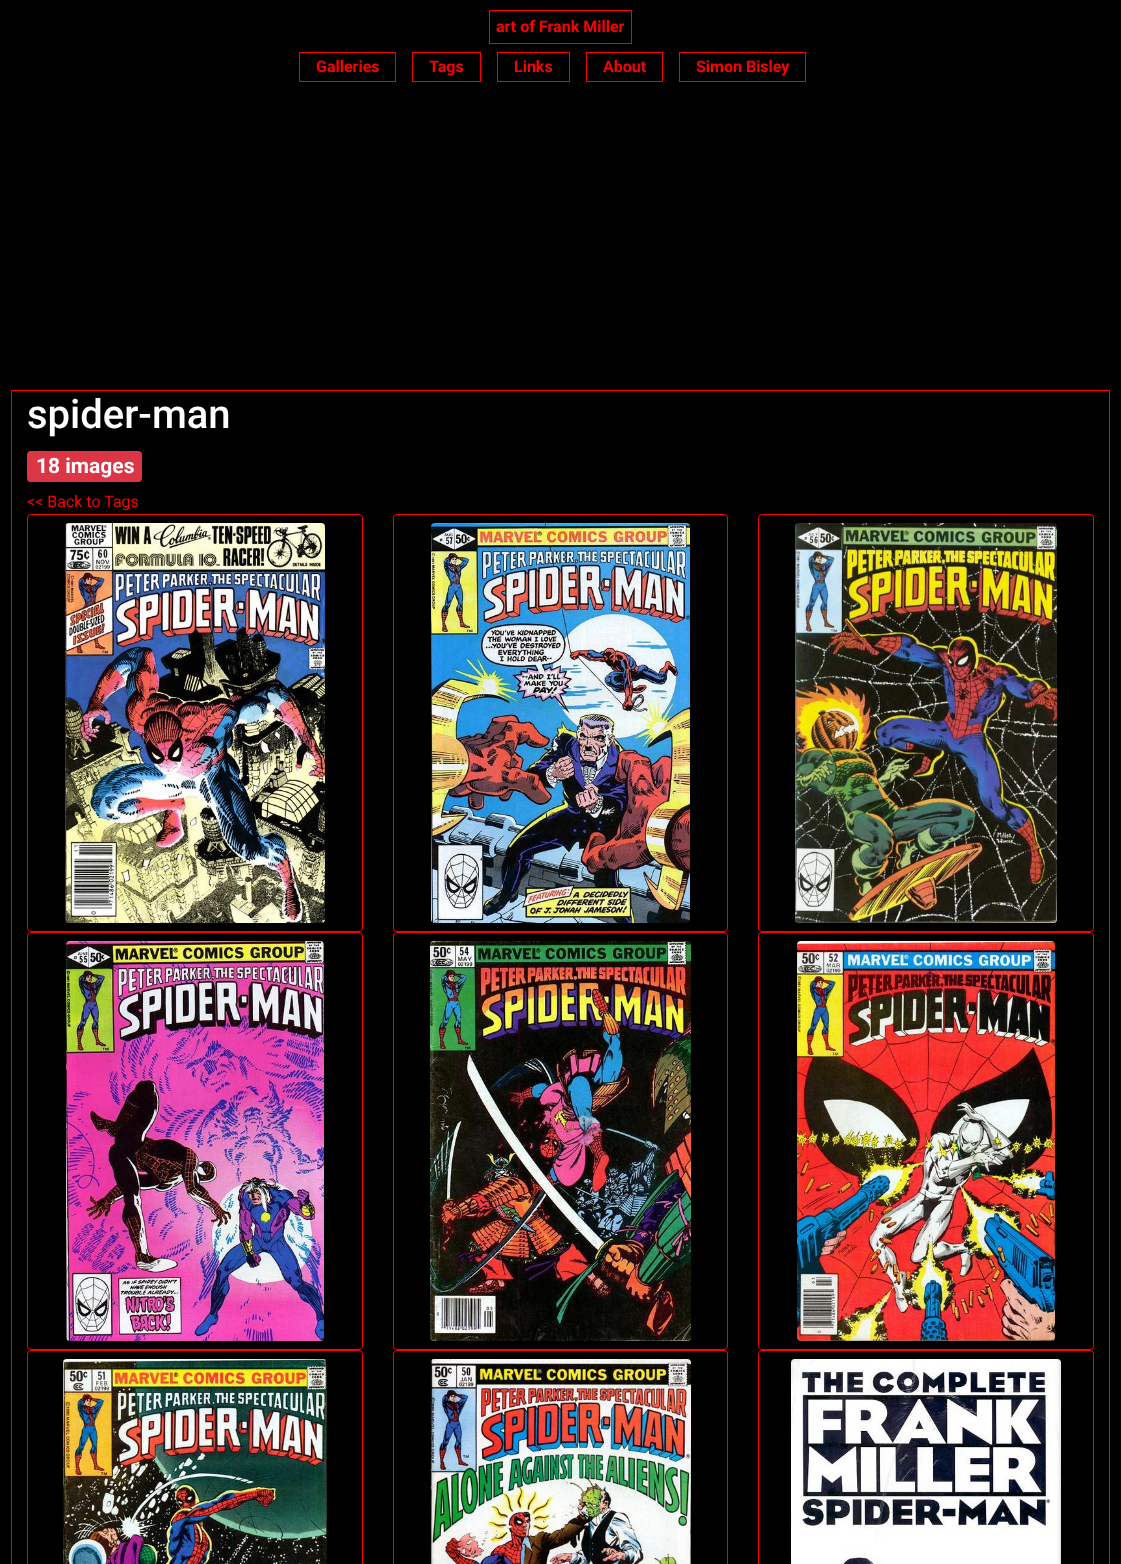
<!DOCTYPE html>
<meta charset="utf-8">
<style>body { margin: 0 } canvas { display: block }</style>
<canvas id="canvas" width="1121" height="1564"></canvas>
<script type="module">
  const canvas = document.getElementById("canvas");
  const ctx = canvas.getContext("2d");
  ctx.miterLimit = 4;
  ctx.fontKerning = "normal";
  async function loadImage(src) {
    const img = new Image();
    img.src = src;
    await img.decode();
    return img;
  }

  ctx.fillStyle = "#000000";
  ctx.fillRect(0, 0, 1121, 1564);
  ctx.strokeStyle = "#ff0000";
  ctx.strokeRect(489.5, 10.5, 142, 33);
  ctx.font = "bold 16px Roboto";
  ctx.fillStyle = "#ff0000";
  ctx.fillText("art of Frank Miller", 496, 32);
  ctx.strokeRect(299.5, 52.5, 96, 29);
  ctx.fillText("Galleries", 316, 72);
  ctx.strokeRect(412.5, 52.5, 68, 29);
  ctx.fillText("Tags", 429, 72);
  ctx.strokeRect(497.5, 52.5, 72, 29);
  ctx.fillText("Links", 514, 72);
  ctx.strokeRect(586.5, 52.5, 76, 29);
  ctx.fillText("About", 603, 72);
  ctx.strokeRect(679.5, 52.5, 126, 29);
  ctx.fillText("Simon Bisley", 696, 72);
  ctx.strokeRect(11.5, 390.5, 1098, 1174);
  ctx.font = "500 40px Roboto";
  ctx.fillStyle = "#ffffff";
  ctx.fillText("spider-man", 27, 428);
  ctx.fillStyle = "#dc3545";
  ctx.beginPath();
  ctx.roundRect(27, 451, 115, 31, 4);
  ctx.fill();
  ctx.font = "bold 21px Roboto";
  ctx.fillStyle = "#ffffff";
  ctx.fillText("18 images", 36, 473);
  ctx.font = "16px Roboto";
  ctx.fillStyle = "#ff0000";
  ctx.fillText("<< Back to Tags", 27, 507);
  ctx.beginPath();
  ctx.roundRect(27.5, 514.5, 335, 417, 3.5);
  ctx.stroke();
  ctx.drawImage(await loadImage("img1.png"), 65, 523, 260, 400);
  ctx.beginPath();
  ctx.roundRect(393.5, 514.5, 334, 417, 3.5);
  ctx.stroke();
  ctx.drawImage(await loadImage("img2.png"), 431, 523, 259, 400);
  ctx.beginPath();
  ctx.roundRect(758.5, 514.5, 335, 417, 3.5);
  ctx.stroke();
  ctx.drawImage(await loadImage("img3.png"), 795, 523, 262, 400);
  ctx.beginPath();
  ctx.roundRect(27.5, 932.5, 335, 417, 3.5);
  ctx.stroke();
  ctx.drawImage(await loadImage("img4.png"), 66, 941, 258, 400);
  ctx.beginPath();
  ctx.roundRect(393.5, 932.5, 334, 417, 3.5);
  ctx.stroke();
  ctx.drawImage(await loadImage("img5.png"), 430, 941, 261, 400);
  ctx.beginPath();
  ctx.roundRect(758.5, 932.5, 335, 417, 3.5);
  ctx.stroke();
  ctx.drawImage(await loadImage("img6.png"), 797, 941, 258, 400);
  ctx.beginPath();
  ctx.roundRect(27.5, 1350.5, 335, 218, 3.5);
  ctx.stroke();
  ctx.drawImage(await loadImage("img7.png"), 63, 1359, 264, 205);
  ctx.beginPath();
  ctx.roundRect(393.5, 1350.5, 334, 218, 3.5);
  ctx.stroke();
  ctx.drawImage(await loadImage("img8.png"), 430, 1359, 261, 205);
  ctx.beginPath();
  ctx.roundRect(758.5, 1350.5, 335, 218, 3.5);
  ctx.stroke();
  ctx.drawImage(await loadImage("img9.png"), 791, 1359, 270, 205);
</script>
